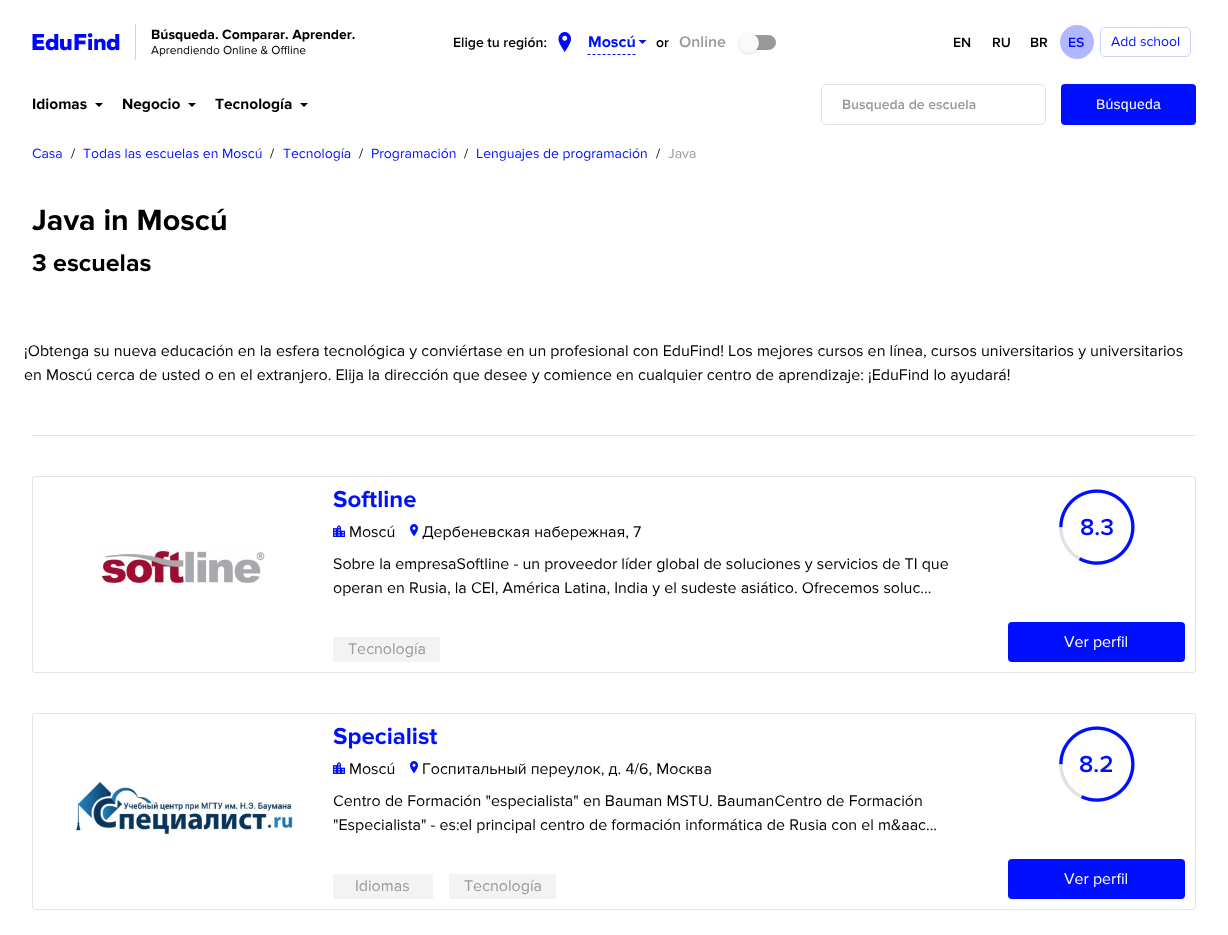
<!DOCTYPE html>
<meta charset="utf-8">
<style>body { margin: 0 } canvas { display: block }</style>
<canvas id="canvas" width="1228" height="935"></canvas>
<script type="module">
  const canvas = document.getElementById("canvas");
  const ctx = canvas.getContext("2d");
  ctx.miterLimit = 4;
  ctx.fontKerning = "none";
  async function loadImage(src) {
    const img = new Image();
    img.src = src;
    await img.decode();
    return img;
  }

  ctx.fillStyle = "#ffffff";
  ctx.fillRect(0, 0, 1228, 935);
  ctx.drawImage(await loadImage("img1.png"), 32, 33, 88, 18);
  ctx.fillStyle = "#d3d3d3";
  ctx.fillRect(135, 24, 1, 36);
  ctx.font = "bold 14px Proxima Nova";
  ctx.fillStyle = "#000000";
  ctx.fillText("Búsqueda. Comparar. Aprender.", 151, 39);
  ctx.font = "12px Proxima Nova";
  ctx.fillText("Aprendiendo Online & Offline", 151, 54);
  ctx.font = "600 14px Proxima Nova";
  ctx.fillText("Elige tu región:", 453, 47);
  ctx.drawImage(await loadImage("img2.png"), 558, 32, 13, 20);
  ctx.beginPath();
  ctx.moveTo(587.5, 54.5);
  ctx.lineTo(635.5, 54.5);
  ctx.strokeStyle = "#000ffe";
  ctx.setLineDash([3, 2]);
  ctx.stroke();
  ctx.font = "bold 16px Proxima Nova";
  ctx.fillStyle = "#000ffe";
  ctx.fillText("Moscú", 588, 47);
  ctx.beginPath();
  ctx.moveTo(638.5, 40);
  ctx.lineTo(646.5, 40);
  ctx.lineTo(642.5, 44);
  ctx.closePath();
  ctx.fill();
  ctx.font = "600 14px Proxima Nova";
  ctx.fillStyle = "#000000";
  ctx.fillText("or", 656, 47);
  ctx.fillStyle = "#999999";
  ctx.beginPath();
  ctx.roundRect(741.5, 35.5, 34, 14, 7);
  ctx.fill();
  ctx.strokeStyle = "#999999";
  ctx.setLineDash([]);
  ctx.stroke();
  ctx.fillStyle = "rgba(0, 0, 0, 0.15)";
  ctx.filter = "blur(1.5px)";
  ctx.beginPath();
  ctx.roundRect(739, 34, 20, 20, 10);
  ctx.fill();
  ctx.filter = "none";
  ctx.fillStyle = "#fafafa";
  ctx.beginPath();
  ctx.arc(749, 43, 10, 0, Math.PI * 2);
  ctx.fill();
  ctx.font = "600 16px Proxima Nova";
  ctx.fillStyle = "#999999";
  ctx.fillText("Online", 679, 47);
  ctx.font = "600 14px Proxima Nova";
  ctx.fillStyle = "#000000";
  ctx.fillText("EN", 953, 47);
  ctx.fillText("RU", 992, 47);
  ctx.fillText("BR", 1030, 47);
  ctx.fillStyle = "#000ffe";
  ctx.fillText("ES", 1068, 47);
  ctx.fillStyle = "rgba(0, 15, 254, 0.3)";
  ctx.beginPath();
  ctx.arc(1077, 42, 17, 0, Math.PI * 2);
  ctx.fill();
  ctx.beginPath();
  ctx.roundRect(1100.5, 27.5, 90, 29, 4.5);
  ctx.strokeStyle = "#ccd0ff";
  ctx.stroke();
  ctx.font = "14px Proxima Nova";
  ctx.fillStyle = "#000ffe";
  ctx.fillText("Add school", 1111, 46);
  ctx.font = "bold 15.5px Proxima Nova";
  ctx.fillStyle = "#000000";
  ctx.fillText("Idiomas", 32, 109);
  ctx.beginPath();
  ctx.moveTo(95, 103);
  ctx.lineTo(103, 103);
  ctx.lineTo(99, 107);
  ctx.closePath();
  ctx.fill();
  ctx.fillText("Negocio", 122, 109);
  ctx.beginPath();
  ctx.moveTo(188, 103);
  ctx.lineTo(196, 103);
  ctx.lineTo(192, 107);
  ctx.closePath();
  ctx.fill();
  ctx.fillText("Tecnología", 215, 109);
  ctx.beginPath();
  ctx.moveTo(300, 103);
  ctx.lineTo(308, 103);
  ctx.lineTo(304, 107);
  ctx.closePath();
  ctx.fill();
  ctx.beginPath();
  ctx.roundRect(821.5, 84.5, 224, 40, 4.5);
  ctx.strokeStyle = "#e4e4e4";
  ctx.stroke();
  ctx.font = "600 14px Proxima Nova";
  ctx.fillStyle = "#999999";
  ctx.fillText("Busqueda de escuela", 842, 109);
  ctx.fillStyle = "#000ffe";
  ctx.beginPath();
  ctx.roundRect(1061, 84, 135, 41, 4);
  ctx.fill();
  ctx.letterSpacing = "0.25px";
  ctx.font = "14px Liberation Sans";
  ctx.fillStyle = "#ffffff";
  ctx.fillText("Búsqueda", 1096, 109);
  ctx.letterSpacing = "0px";
  ctx.font = "14px Proxima Nova";
  ctx.fillStyle = "#000ffe";
  ctx.fillText("Casa", 32, 158);
  ctx.fillStyle = "#000000";
  ctx.fillText("/", 71, 158);
  ctx.fillStyle = "#000ffe";
  ctx.fillText("Todas las escuelas en Moscú", 83, 158);
  ctx.fillStyle = "#000000";
  ctx.fillText("/", 270, 158);
  ctx.fillStyle = "#000ffe";
  ctx.fillText("Tecnología", 283, 158);
  ctx.fillStyle = "#000000";
  ctx.fillText("/", 359, 158);
  ctx.fillStyle = "#000ffe";
  ctx.fillText("Programación", 371, 158);
  ctx.fillStyle = "#000000";
  ctx.fillText("/", 464, 158);
  ctx.fillStyle = "#000ffe";
  ctx.fillText("Lenguajes de programación", 476, 158);
  ctx.fillStyle = "#000000";
  ctx.fillText("/", 656, 158);
  ctx.fillStyle = "#999999";
  ctx.fillText("Java", 668, 158);
  ctx.font = "bold 30.5px Proxima Nova";
  ctx.fillStyle = "#000000";
  ctx.fillText("Java in Moscú", 32, 230);
  ctx.font = "bold 25px Proxima Nova";
  ctx.fillText("3 escuelas", 32, 271);
  ctx.font = "16px Proxima Nova";
  ctx.fillText("¡Obtenga su nueva educación en la esfera tecnológica y conviértase en un profesional con EduFind! Los mejores cursos en línea, cursos universitarios y universitarios", 24, 356);
  ctx.fillText("en Moscú cerca de usted o en el extranjero. Elija la dirección que desee y comience en cualquier centro de aprendizaje: ¡EduFind lo ayudará!", 24, 380);
  ctx.fillStyle = "#e4e4e4";
  ctx.fillRect(32, 435, 1164, 1);
  ctx.beginPath();
  ctx.roundRect(32.5, 476.5, 1163, 196, 2.5);
  ctx.stroke();
  ctx.font = "bold 24px Proxima Nova";
  ctx.fillStyle = "#000ffe";
  ctx.fillText("Softline", 333, 507);
  ctx.drawImage(await loadImage("img3.png"), 333, 525, 12, 12);
  ctx.font = "16px Proxima Nova";
  ctx.fillStyle = "#000000";
  ctx.fillText("Moscú", 349, 537);
  ctx.drawImage(await loadImage("img4.png"), 410, 524, 8, 13);
  ctx.fillText("Дербеневская набережная, 7", 422, 537);
  ctx.fillText("Sobre la empresaSoftline - un proveedor líder global de soluciones y servicios de TI que", 333, 569);
  ctx.fillText("operan en Rusia, la CEI, América Latina, India y el sudeste asiático. Ofrecemos soluc...", 333, 593);
  ctx.drawImage(await loadImage("img5.png"), 1059, 489, 76, 76);
  ctx.font = "600 24px Proxima Nova";
  ctx.fillStyle = "#000ffe";
  ctx.fillText("8.3", 1080, 535);
  ctx.drawImage(await loadImage("img6.png"), 96, 546, 169, 38);
  ctx.fillStyle = "#f3f3f3";
  ctx.fillRect(333, 637, 107, 25);
  ctx.font = "16px Proxima Nova";
  ctx.fillStyle = "#999999";
  ctx.fillText("Tecnología", 348, 654);
  ctx.fillStyle = "#000ffe";
  ctx.beginPath();
  ctx.roundRect(1008, 622, 177, 40, 4);
  ctx.fill();
  ctx.fillStyle = "#ffffff";
  ctx.fillText("Ver perfil", 1064, 647);
  ctx.beginPath();
  ctx.roundRect(32.5, 713.5, 1163, 196, 2.5);
  ctx.stroke();
  ctx.font = "bold 24px Proxima Nova";
  ctx.fillStyle = "#000ffe";
  ctx.fillText("Specialist", 333, 744);
  ctx.drawImage(await loadImage("img3.png"), 333, 762, 12, 12);
  ctx.font = "16px Proxima Nova";
  ctx.fillStyle = "#000000";
  ctx.fillText("Moscú", 349, 774);
  ctx.drawImage(await loadImage("img4.png"), 410, 761, 8, 13);
  ctx.fillText("Госпитальный переулок, д. 4/6, Москва", 422, 774);
  ctx.fillText("Centro de Formación \"especialista\" en Bauman MSTU. BaumanCentro de Formación", 333, 806);
  ctx.fillText("\"Especialista\" - es:el principal centro de formación informática de Rusia con el m&aac...", 333, 830);
  ctx.drawImage(await loadImage("img7.png"), 1059, 726, 76, 76);
  ctx.font = "600 24px Proxima Nova";
  ctx.fillStyle = "#000ffe";
  ctx.fillText("8.2", 1079, 772);
  ctx.drawImage(await loadImage("img8.png"), 74, 780, 222, 56);
  ctx.fillStyle = "#f3f3f3";
  ctx.fillRect(333, 874, 100, 25);
  ctx.font = "16px Proxima Nova";
  ctx.fillStyle = "#999999";
  ctx.fillText("Idiomas", 355, 891);
  ctx.fillStyle = "#f3f3f3";
  ctx.fillRect(449, 874, 107, 25);
  ctx.fillStyle = "#999999";
  ctx.fillText("Tecnología", 464, 891);
  ctx.fillStyle = "#000ffe";
  ctx.beginPath();
  ctx.roundRect(1008, 859, 177, 40, 4);
  ctx.fill();
  ctx.fillStyle = "#ffffff";
  ctx.fillText("Ver perfil", 1064, 884);
</script>
